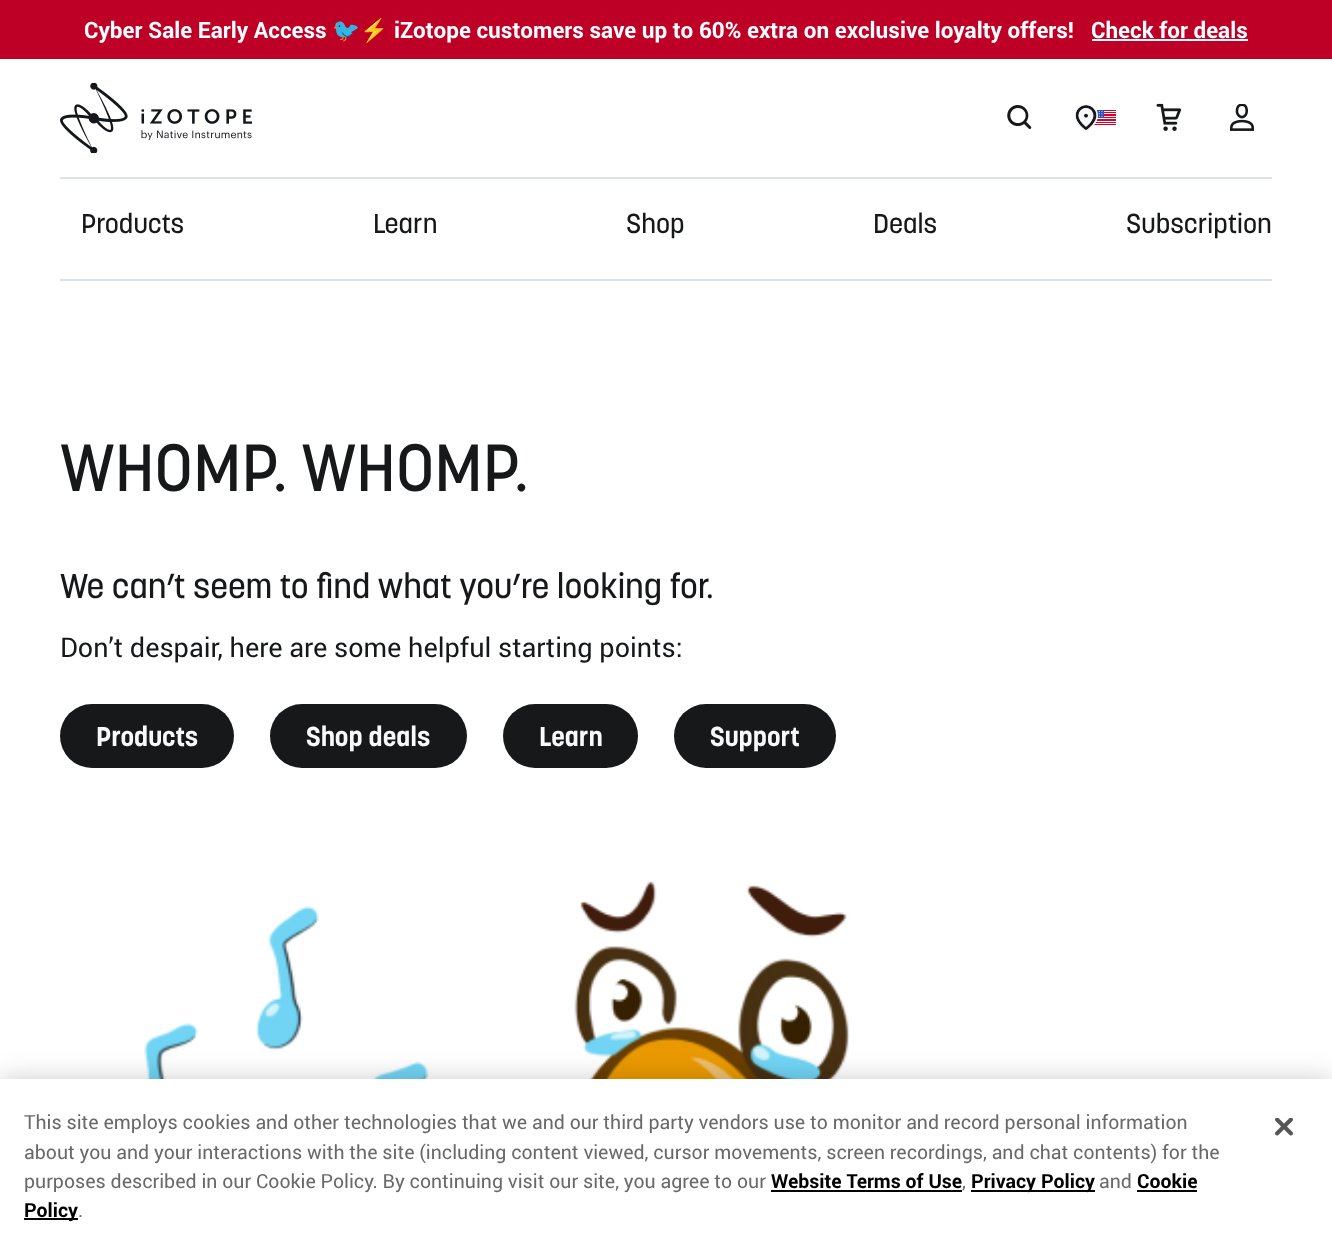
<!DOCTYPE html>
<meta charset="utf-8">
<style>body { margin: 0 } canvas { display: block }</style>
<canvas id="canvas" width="1332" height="1240"></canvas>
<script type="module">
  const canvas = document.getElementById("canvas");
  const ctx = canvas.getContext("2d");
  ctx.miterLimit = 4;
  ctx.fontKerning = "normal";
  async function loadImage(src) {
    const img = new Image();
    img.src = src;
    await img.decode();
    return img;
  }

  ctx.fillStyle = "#ffffff";
  ctx.fillRect(0, 0, 1332, 1240);
  ctx.fillStyle = "#be0027";
  ctx.fillRect(0, 0, 1332, 59);
  ctx.font = "bold 22.5px Roboto";
  ctx.fillStyle = "#ffffff";
  ctx.fillText("Cyber Sale Early Access", 84, 38);
  ctx.font = "bold 22.5px Noto Color Emoji";
  ctx.fillText("🐦⚡", 332, 38);
  ctx.font = "bold 22.5px Roboto";
  ctx.fillText("iZotope customers save up to 60% extra on exclusive loyalty offers!", 394, 38);
  ctx.fillText("Check for deals", 1091, 38);
  ctx.fillRect(1092, 39, 156, 2);
  ctx.drawImage(await loadImage("img1.png"), 60, 83, 192, 70);
  ctx.drawImage(await loadImage("img2.png"), 1007, 105, 25, 24);
  ctx.drawImage(await loadImage("img4.png"), 1092, 110, 24, 15);
  ctx.drawImage(await loadImage("img3.png"), 1074, 104, 24, 28);
  ctx.drawImage(await loadImage("img5.png"), 1156, 103, 26, 28);
  ctx.drawImage(await loadImage("img6.png"), 1230, 104, 24, 27);
  ctx.fillStyle = "#dce1e5";
  ctx.fillRect(60, 177, 1212, 2);
  ctx.fillRect(60, 279, 1212, 2);
  ctx.font = "500 27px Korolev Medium";
  ctx.fillStyle = "#161819";
  ctx.fillText("Products", 81, 233);
  ctx.fillText("Learn", 373, 233);
  ctx.fillText("Shop", 626, 233);
  ctx.fillText("Deals", 873, 233);
  ctx.fillText("Subscription", 1126, 233);
  ctx.font = "500 66px Korolev Medium";
  ctx.fillText("WHOMP. WHOMP.", 60, 491);
  ctx.font = "500 34.2px Korolev Medium";
  ctx.fillText("We can’t seem to find what you’re looking for.", 60, 598);
  ctx.font = "27px Roboto";
  ctx.fillText("Don’t despair, here are some helpful starting points:", 60, 657);
  ctx.beginPath();
  ctx.roundRect(60, 704, 174, 64, 32);
  ctx.fill();
  ctx.font = "bold 27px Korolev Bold";
  ctx.fillStyle = "#f8f9fa";
  ctx.fillText("Products", 96, 746);
  ctx.fillStyle = "#161819";
  ctx.beginPath();
  ctx.roundRect(270, 704, 197, 64, 32);
  ctx.fill();
  ctx.fillStyle = "#f8f9fa";
  ctx.fillText("Shop deals", 306, 746);
  ctx.fillStyle = "#161819";
  ctx.beginPath();
  ctx.roundRect(503, 704, 135, 64, 32);
  ctx.fill();
  ctx.fillStyle = "#f8f9fa";
  ctx.fillText("Learn", 539, 746);
  ctx.fillStyle = "#161819";
  ctx.beginPath();
  ctx.roundRect(674, 704, 162, 64, 32);
  ctx.fill();
  ctx.fillStyle = "#f8f9fa";
  ctx.fillText("Support", 710, 746);
  ctx.drawImage(await loadImage("img7.png"), 130, 881, 926, 198);
  ctx.fillStyle = "rgba(0, 0, 0, 0.2)";
  ctx.filter = "blur(13.5px)";
  ctx.beginPath();
  ctx.rect(0, 1079, 1332, 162);
  ctx.fill();
  ctx.filter = "none";
  ctx.fillStyle = "#ffffff";
  ctx.fillRect(0, 1079, 1332, 161);
  ctx.font = "19.5px Roboto";
  ctx.fillStyle = "#696969";
  ctx.fillText("This site employs cookies and other technologies that we and our third party vendors use to monitor and record personal information", 24, 1129);
  ctx.fillText("about you and your interactions with the site (including content viewed, cursor movements, screen recordings, and chat contents) for the", 24, 1159);
  ctx.fillText("purposes described in our Cookie Policy. By continuing visit our site, you agree to our", 24, 1188);
  ctx.font = "bold 19.5px Roboto";
  ctx.fillStyle = "#000000";
  ctx.fillText("Website Terms of Use", 771, 1188);
  ctx.fillRect(771, 1190, 191, 2);
  ctx.font = "19.5px Roboto";
  ctx.fillStyle = "#696969";
  ctx.fillText(",", 962, 1188);
  ctx.fillStyle = "#000000";
  ctx.fillRect(971, 1190, 124, 2);
  ctx.font = "bold 19.5px Roboto";
  ctx.fillText("Privacy Policy", 971, 1188);
  ctx.font = "19.5px Roboto";
  ctx.fillStyle = "#696969";
  ctx.fillText("and", 1099, 1188);
  ctx.font = "bold 19.5px Roboto";
  ctx.fillStyle = "#000000";
  ctx.fillText("Cookie", 1137, 1188);
  ctx.fillRect(1137, 1190, 60, 2);
  ctx.fillRect(24, 1218, 54, 2);
  ctx.fillText("Policy", 24, 1217);
  ctx.font = "19.5px Roboto";
  ctx.fillStyle = "#696969";
  ctx.fillText(".", 78, 1217);
  ctx.drawImage(await loadImage("img8.png"), 1275, 1118, 18, 18);
</script>
